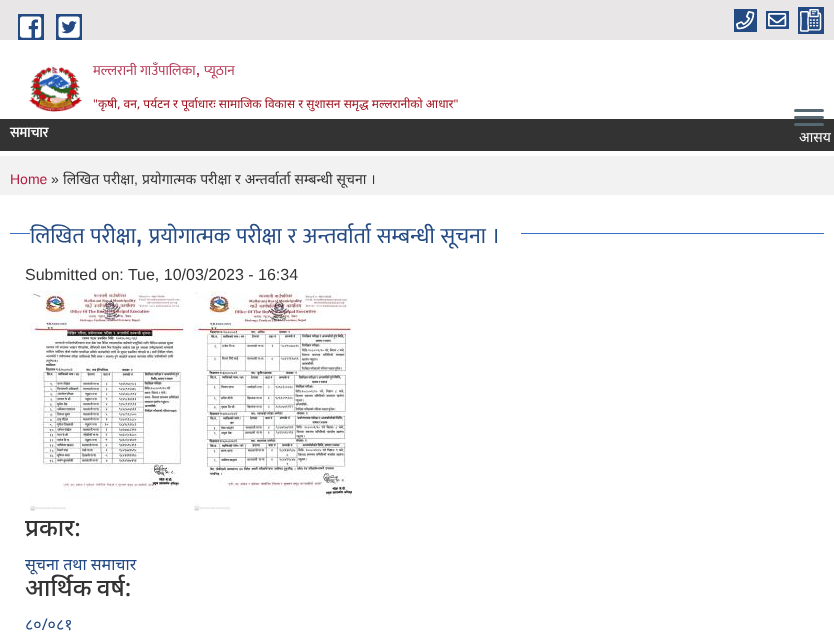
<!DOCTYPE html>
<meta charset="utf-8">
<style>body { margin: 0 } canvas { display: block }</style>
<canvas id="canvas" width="834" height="633"></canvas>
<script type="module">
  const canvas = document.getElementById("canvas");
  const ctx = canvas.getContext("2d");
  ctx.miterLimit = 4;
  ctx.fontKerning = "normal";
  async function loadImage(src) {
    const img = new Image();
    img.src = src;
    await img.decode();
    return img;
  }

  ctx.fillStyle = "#ffffff";
  ctx.fillRect(0, 0, 834, 633);
  ctx.fillStyle = "#e8e6e6";
  ctx.fillRect(0, 0, 834, 40);
  ctx.fillStyle = "#234a83";
  ctx.fillRect(18, 14, 26, 26);
  ctx.fillRect(56, 14, 26, 26);
  ctx.drawImage(await loadImage("img1.png"), 20, 16, 22, 22);
  ctx.drawImage(await loadImage("img2.png"), 58, 16, 22, 22);
  ctx.fillRect(734, 9, 23, 23);
  ctx.fillRect(798, 7, 26, 27);
  ctx.drawImage(await loadImage("img3.png"), 736, 11, 19, 19);
  ctx.fillRect(766, 11, 23, 18);
  ctx.drawImage(await loadImage("img4.png"), 800, 9, 22, 23);
  ctx.drawImage(await loadImage("img5.png"), 768, 13, 19, 14);
  ctx.drawImage(await loadImage("img6.png"), 29, 66, 54, 46);
  ctx.font = "14px Mukta";
  ctx.fillStyle = "#b83955";
  ctx.fillText("मल्लरानी गाउँपालिका", 93, 75);
  ctx.font = "bold 14px Liberation Sans";
  ctx.fillText(",", 196, 75);
  ctx.font = "14px Mukta";
  ctx.fillText("प्यूठान", 204, 75);
  ctx.wordSpacing = "0.1px";
  ctx.font = "12px Noto Sans";
  ctx.fillStyle = "#9e0c18";
  ctx.fillText("\"कृषी, वन, पर्यटन र पूर्वाधारः सामाजिक विकास र सुशासन समृद्ध मल्लरानीको आधार\"", 93, 108);
  ctx.fillStyle = "#566973";
  ctx.beginPath();
  ctx.roundRect(794, 109, 30, 3, 1.5);
  ctx.fill();
  ctx.beginPath();
  ctx.roundRect(794, 116, 30, 3, 1.5);
  ctx.fill();
  ctx.fillStyle = "#333333";
  ctx.fillRect(0, 119, 834, 32);
  ctx.fillStyle = "#566973";
  ctx.beginPath();
  ctx.roundRect(794, 123, 30, 3, 1.5);
  ctx.fill();
  ctx.wordSpacing = "0px";
  ctx.font = "bold 14px Mukta";
  ctx.fillStyle = "#ffffff";
  ctx.fillText("समाचार", 10, 137);
  ctx.font = "14px Noto Sans";
  ctx.fillText("आसय", 799, 142);
  ctx.fillStyle = "#f2f2f2";
  ctx.fillRect(0, 156, 834, 39);
  ctx.font = "14px Liberation Sans";
  ctx.fillStyle = "#b21c42";
  ctx.fillText("Home", 10, 184);
  ctx.fillStyle = "#333333";
  ctx.fillText("»", 51, 184);
  ctx.wordSpacing = "0.25px";
  ctx.font = "14px Noto Sans";
  ctx.fillText("लिखित परीक्षा", 63, 184);
  ctx.wordSpacing = "0px";
  ctx.font = "14px Liberation Sans";
  ctx.fillText(",", 134, 184);
  ctx.wordSpacing = "0.25px";
  ctx.font = "14px Noto Sans";
  ctx.fillText("प्रयोगात्मक परीक्षा र अन्तर्वार्ता सम्बन्धी सूचना ।", 142, 184);
  ctx.fillStyle = "#376fc2";
  ctx.fillRect(10, 233, 814, 1);
  ctx.fillStyle = "#ffffff";
  ctx.fillRect(30, 233, 491, 1);
  ctx.wordSpacing = "1px";
  ctx.font = "22px Mukta";
  ctx.fillStyle = "#234a83";
  ctx.fillText("लिखित परीक्षा", 30, 243);
  ctx.wordSpacing = "0px";
  ctx.font = "bold 22px Liberation Sans";
  ctx.fillText(",", 136, 243);
  ctx.wordSpacing = "1px";
  ctx.font = "22px Mukta";
  ctx.fillText("प्रयोगात्मक परीक्षा र अन्तर्वार्ता सम्बन्धी सूचना ।", 149, 243);
  ctx.wordSpacing = "0px";
  ctx.font = "16px Liberation Sans";
  ctx.fillStyle = "#333333";
  ctx.fillText("Submitted on: Tue, 10/03/2023 - 16:34", 25, 280);
  ctx.drawImage(await loadImage("img7.png"), 30, 291, 154, 220);
  ctx.drawImage(await loadImage("img8.png"), 194, 291, 158, 220);
  ctx.font = "500 24px Noto Sans";
  ctx.fillText("प्रकार:", 25, 536);
  ctx.font = "16px Noto Sans";
  ctx.fillStyle = "#234a83";
  ctx.fillText("सूचना तथा समाचार", 25, 570);
  ctx.wordSpacing = "-1px";
  ctx.font = "500 24px Noto Sans";
  ctx.fillStyle = "#333333";
  ctx.fillText("आर्थिक वर्ष:", 25, 596);
  ctx.wordSpacing = "0px";
  ctx.font = "16px Noto Sans";
  ctx.fillStyle = "#234a83";
  ctx.fillText("८०/०८१", 25, 630);
</script>
